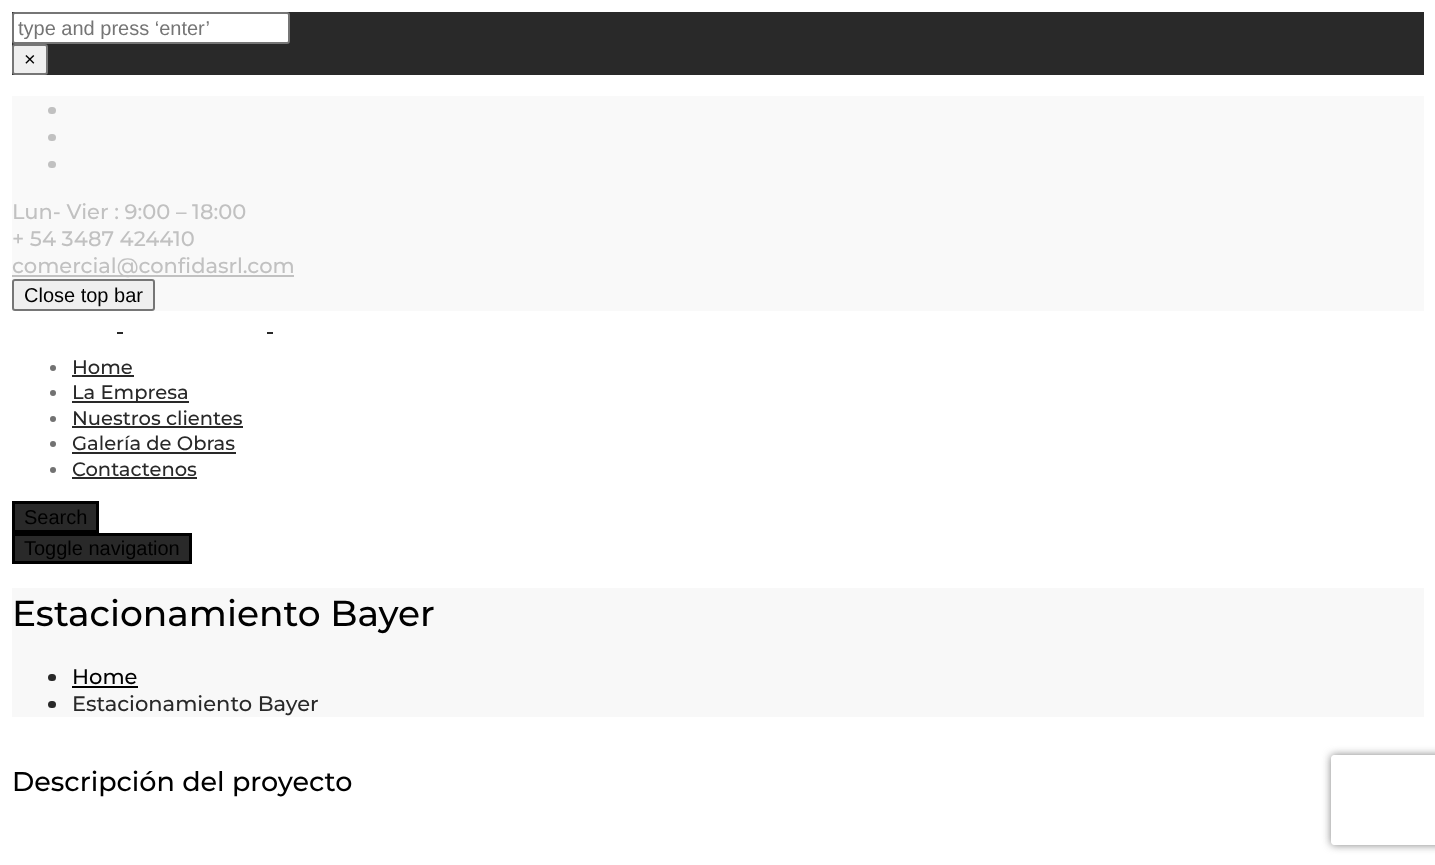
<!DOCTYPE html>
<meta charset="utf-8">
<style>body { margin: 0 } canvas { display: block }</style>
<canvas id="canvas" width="1435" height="865"></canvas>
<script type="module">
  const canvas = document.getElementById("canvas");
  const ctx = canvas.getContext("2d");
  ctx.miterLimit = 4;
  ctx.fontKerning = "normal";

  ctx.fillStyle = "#ffffff";
  ctx.fillRect(0, 0, 1435, 865);
  ctx.fillStyle = "#292929";
  ctx.fillRect(12, 12, 1412, 63);
  ctx.fillStyle = "#ffffff";
  ctx.beginPath();
  ctx.roundRect(13, 13, 276, 30, 2);
  ctx.fill();
  ctx.strokeStyle = "#767676";
  ctx.lineWidth = 2;
  ctx.stroke();
  ctx.save();
  ctx.beginPath();
  ctx.rect(18, 17, 266, 22);
  ctx.clip();
  ctx.font = "20px Liberation Sans";
  ctx.fillStyle = "#757575";
  ctx.fillText("type and press ‘enter’", 18, 35);
  ctx.restore();
  ctx.fillStyle = "#efefef";
  ctx.beginPath();
  ctx.roundRect(13, 45, 34, 29, 2);
  ctx.fill();
  ctx.stroke();
  ctx.font = "20px Liberation Sans";
  ctx.fillStyle = "#000000";
  ctx.fillText("×", 24, 66);
  ctx.fillStyle = "#f9f9f9";
  ctx.fillRect(12, 96, 1412, 215);
  ctx.fillStyle = "#c1c1c1";
  ctx.beginPath();
  ctx.roundRect(48, 107, 8, 7, 3.5);
  ctx.fill();
  ctx.beginPath();
  ctx.roundRect(48, 134, 8, 7, 3.5);
  ctx.fill();
  ctx.beginPath();
  ctx.roundRect(48, 161, 8, 7, 3.5);
  ctx.fill();
  ctx.font = "500 21px Montserrat";
  ctx.fillText("Lun- Vier : 9:00 – 18:00", 12, 219);
  ctx.fillText("+ 54 3487 424410", 12, 246);
  ctx.fillRect(12, 275, 282, 2);
  ctx.fillText("comercial@confidasrl.com", 12, 273);
  ctx.fillStyle = "#efefef";
  ctx.beginPath();
  ctx.roundRect(13, 280, 141, 30, 2);
  ctx.fill();
  ctx.stroke();
  ctx.font = "20px Liberation Sans";
  ctx.fillStyle = "#000000";
  ctx.fillText("Close top bar", 24, 302);
  ctx.fillStyle = "#292929";
  ctx.fillRect(117, 332, 6, 2);
  ctx.fillRect(267, 332, 6, 2);
  ctx.fillStyle = "#727272";
  ctx.beginPath();
  ctx.arc(53, 368, 3, 0, Math.PI * 2);
  ctx.fill();
  ctx.font = "500 19.5px Montserrat";
  ctx.fillStyle = "#292929";
  ctx.fillText("Home", 72, 374);
  ctx.fillRect(72, 375, 62, 2);
  ctx.fillStyle = "#727272";
  ctx.beginPath();
  ctx.arc(53, 393, 3, 0, Math.PI * 2);
  ctx.fill();
  ctx.fillStyle = "#292929";
  ctx.fillRect(72, 401, 117, 2);
  ctx.fillText("La Empresa", 72, 399);
  ctx.fillStyle = "#727272";
  ctx.beginPath();
  ctx.arc(53, 419, 3, 0, Math.PI * 2);
  ctx.fill();
  ctx.fillStyle = "#292929";
  ctx.fillText("Nuestros clientes", 72, 425);
  ctx.fillRect(72, 426, 171, 2);
  ctx.fillStyle = "#727272";
  ctx.beginPath();
  ctx.arc(53, 444, 3, 0, Math.PI * 2);
  ctx.fill();
  ctx.fillStyle = "#292929";
  ctx.fillText("Galería de Obras", 72, 450);
  ctx.fillRect(72, 452, 164, 2);
  ctx.fillStyle = "#727272";
  ctx.beginPath();
  ctx.arc(53, 470, 3, 0, Math.PI * 2);
  ctx.fill();
  ctx.fillStyle = "#292929";
  ctx.fillText("Contactenos", 72, 476);
  ctx.fillRect(72, 477, 125, 2);
  ctx.beginPath();
  ctx.rect(13.5, 502.5, 84, 29);
  ctx.fill();
  ctx.strokeStyle = "#000000";
  ctx.lineWidth = 3;
  ctx.stroke();
  ctx.font = "20px Liberation Sans";
  ctx.fillStyle = "#000000";
  ctx.fillText("Search", 24, 524);
  ctx.fillStyle = "#292929";
  ctx.beginPath();
  ctx.rect(13.5, 534.5, 177, 28);
  ctx.fill();
  ctx.stroke();
  ctx.fillStyle = "#000000";
  ctx.fillText("Toggle navigation", 24, 555);
  ctx.fillStyle = "#f8f8f8";
  ctx.fillRect(12, 588, 1412, 129);
  ctx.font = "500 36px Montserrat";
  ctx.fillStyle = "#000000";
  ctx.fillText("Estacionamiento Bayer", 12, 626);
  ctx.fillStyle = "#292929";
  ctx.beginPath();
  ctx.roundRect(48, 674, 8, 7, 3.5);
  ctx.fill();
  ctx.font = "500 21px Montserrat";
  ctx.fillStyle = "#000000";
  ctx.fillText("Home", 72, 684);
  ctx.fillRect(72, 686, 66, 2);
  ctx.fillStyle = "#292929";
  ctx.beginPath();
  ctx.roundRect(48, 701, 8, 7, 3.5);
  ctx.fill();
  ctx.fillText("Estacionamiento Bayer", 72, 711);
  ctx.font = "500 27px Montserrat";
  ctx.fillStyle = "#000000";
  ctx.fillText("Descripción del proyecto", 12, 791);
  ctx.save();
  ctx.beginPath();
  ctx.moveTo(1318, 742);
  ctx.lineTo(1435, 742);
  ctx.lineTo(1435, 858);
  ctx.lineTo(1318, 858);
  ctx.closePath();
  ctx.moveTo(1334, 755);
  ctx.lineTo(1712, 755);
  ctx.bezierCurveTo(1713.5, 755, 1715, 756.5, 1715, 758);
  ctx.lineTo(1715, 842);
  ctx.bezierCurveTo(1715, 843.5, 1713.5, 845, 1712, 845);
  ctx.lineTo(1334, 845);
  ctx.bezierCurveTo(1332.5, 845, 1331, 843.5, 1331, 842);
  ctx.lineTo(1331, 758);
  ctx.bezierCurveTo(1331, 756.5, 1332.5, 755, 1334, 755);
  ctx.closePath();
  ctx.clip("evenodd");
  ctx.fillStyle = "#808080";
  ctx.filter = "blur(4px)";
  ctx.beginPath();
  ctx.roundRect(1331, 755, 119, 90, 3);
  ctx.fill();
  ctx.filter = "none";
  ctx.restore();
</script>
